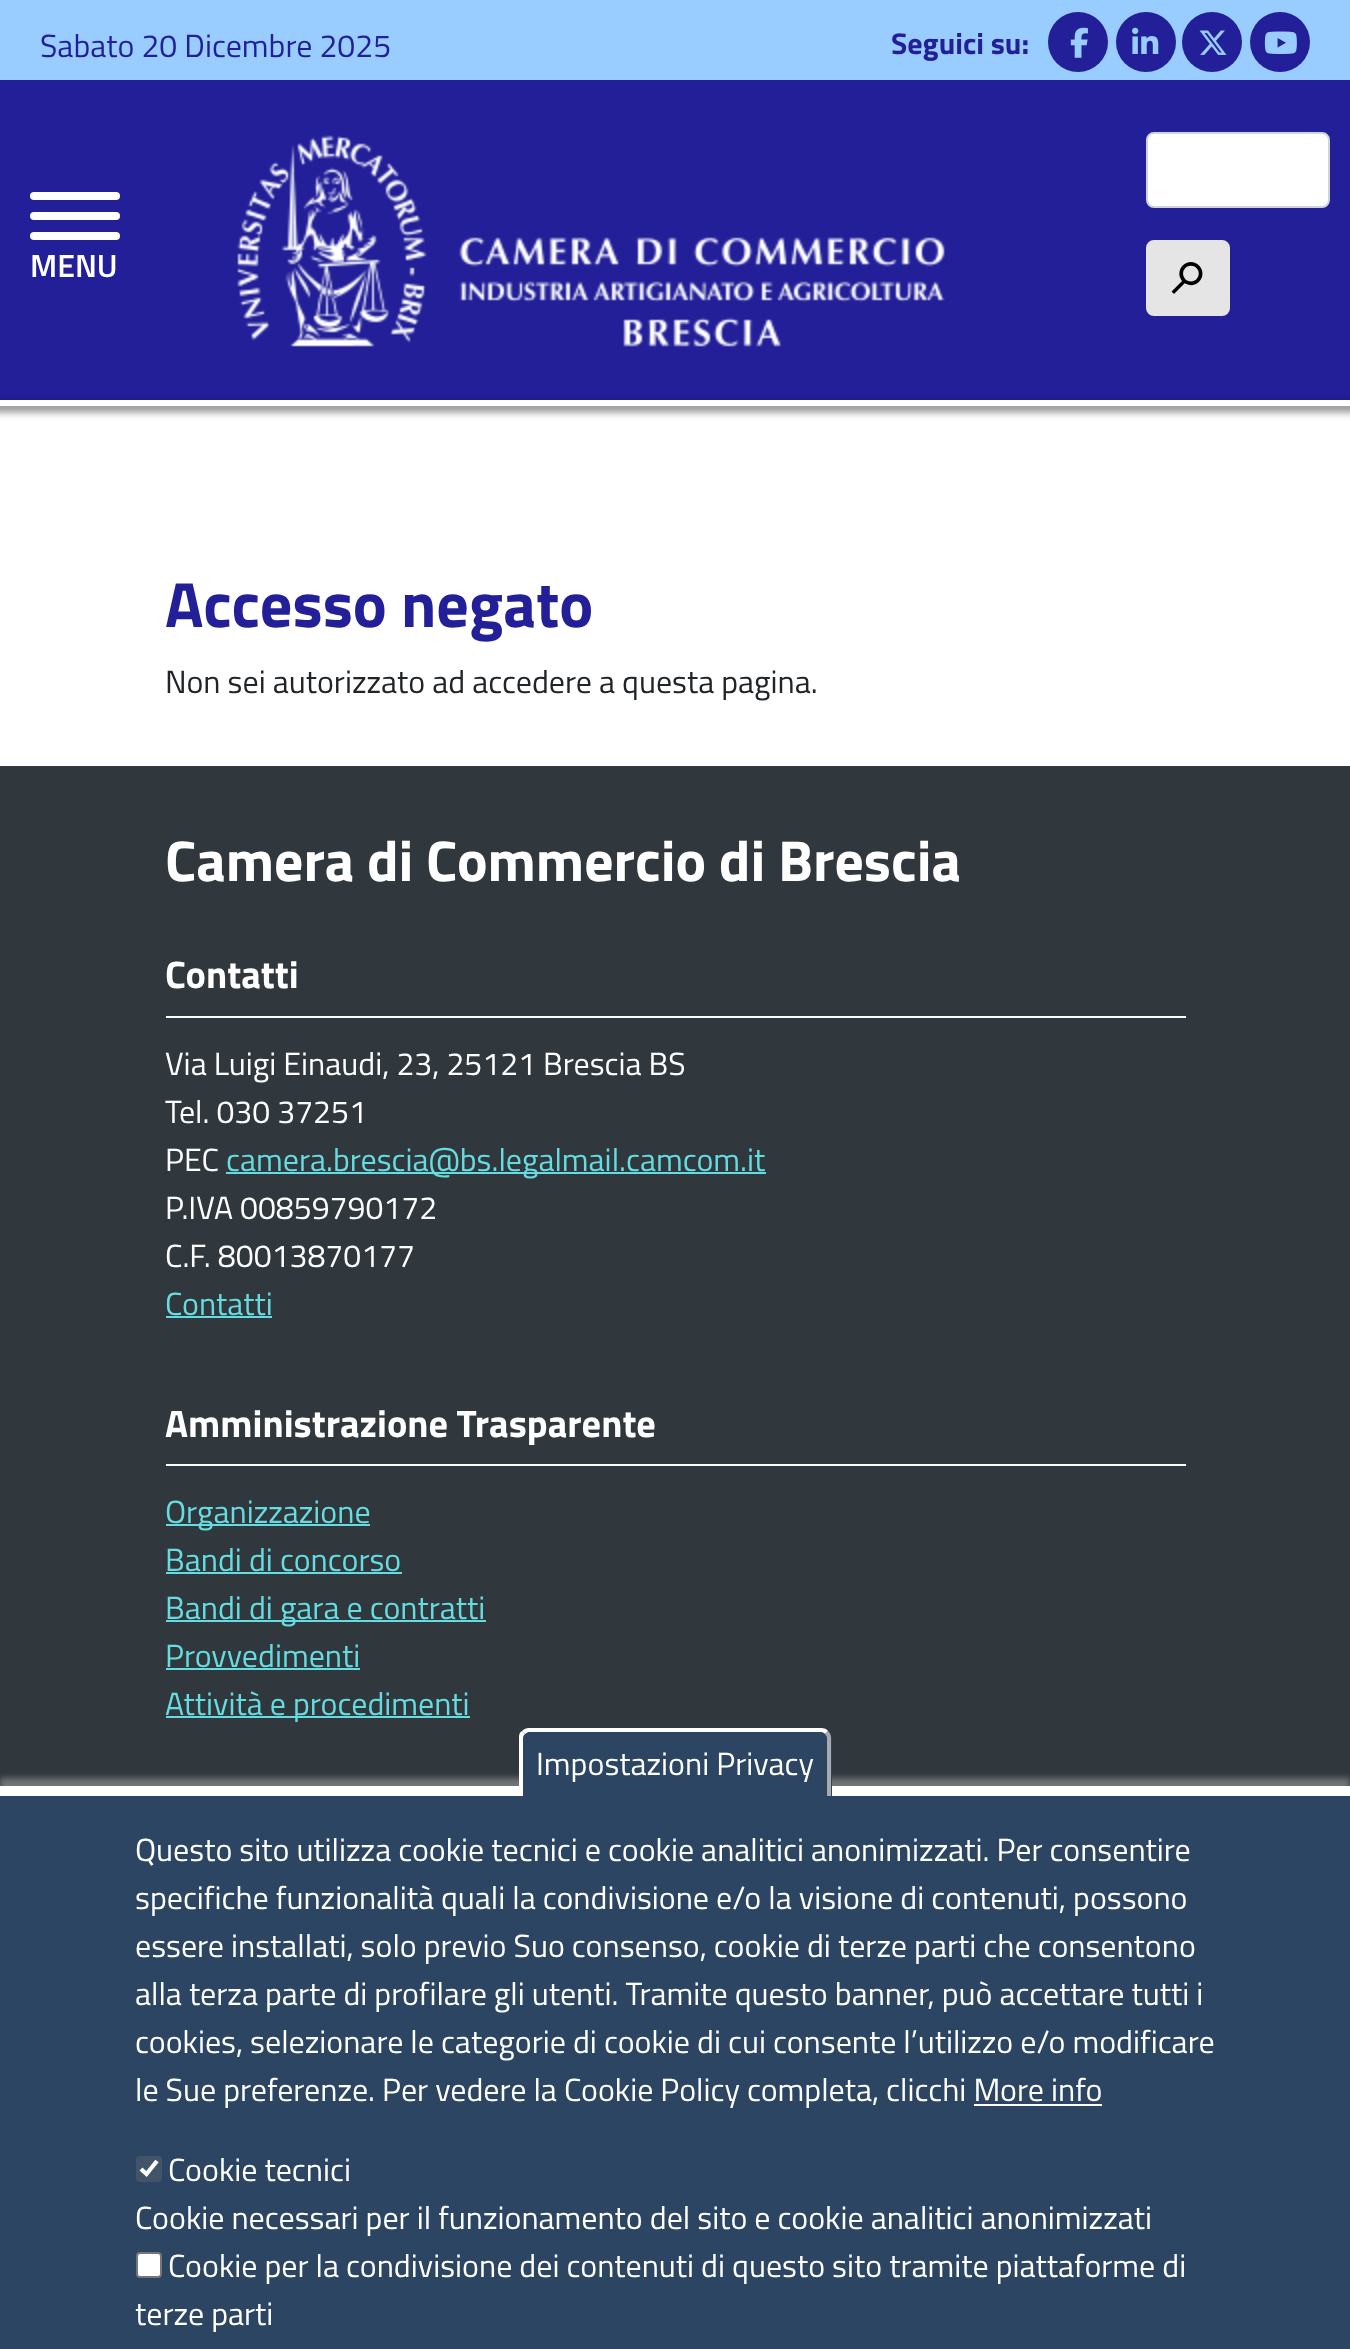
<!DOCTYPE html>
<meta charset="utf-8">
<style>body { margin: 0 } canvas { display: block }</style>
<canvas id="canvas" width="1350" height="2349"></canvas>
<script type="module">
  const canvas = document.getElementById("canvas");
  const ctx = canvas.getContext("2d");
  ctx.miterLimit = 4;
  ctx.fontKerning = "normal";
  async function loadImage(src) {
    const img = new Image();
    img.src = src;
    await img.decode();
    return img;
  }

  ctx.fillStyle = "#ffffff";
  ctx.fillRect(0, 0, 1350, 2349);
  ctx.fillStyle = "#99ccff";
  ctx.fillRect(0, 0, 1350, 80);
  ctx.font = "32px Titillium Web";
  ctx.fillStyle = "#221f99";
  ctx.fillText("Sabato 20 Dicembre 2025", 40, 57);
  ctx.font = "bold 30px Titillium Web";
  ctx.fillText("Seguici su:", 891, 54);
  ctx.beginPath();
  ctx.arc(1078, 42, 30, 0, Math.PI * 2);
  ctx.fill();
  ctx.drawImage(await loadImage("img1.png"), 1070, 27, 18, 31);
  ctx.beginPath();
  ctx.arc(1146, 42, 30, 0, Math.PI * 2);
  ctx.fill();
  ctx.drawImage(await loadImage("img2.png"), 1132, 27, 27, 27);
  ctx.beginPath();
  ctx.arc(1212, 42, 30, 0, Math.PI * 2);
  ctx.fill();
  ctx.drawImage(await loadImage("img3.png"), 1199, 30, 28, 25);
  ctx.beginPath();
  ctx.arc(1280, 42, 30, 0, Math.PI * 2);
  ctx.fill();
  ctx.drawImage(await loadImage("img4.png"), 1264, 31, 33, 23);
  ctx.fillRect(0, 80, 1350, 320);
  ctx.fillStyle = "#ffffff";
  ctx.beginPath();
  ctx.roundRect(30, 232, 90, 8, 4);
  ctx.fill();
  ctx.beginPath();
  ctx.roundRect(30, 192, 90, 8, 4);
  ctx.fill();
  ctx.beginPath();
  ctx.roundRect(30, 212, 90, 8, 4);
  ctx.fill();
  ctx.font = "600 32px Titillium Web";
  ctx.fillText("MENU", 30, 277);
  ctx.drawImage(await loadImage("img5.png"), 237, 135, 708, 212);
  ctx.beginPath();
  ctx.roundRect(1147, 133, 182, 74, 7);
  ctx.fill();
  ctx.strokeStyle = "#ced4da";
  ctx.lineWidth = 2;
  ctx.stroke();
  ctx.fillStyle = "#e5e5e5";
  ctx.beginPath();
  ctx.roundRect(1147, 241, 82, 74, 7);
  ctx.fill();
  ctx.strokeStyle = "#e5e5e5";
  ctx.stroke();
  ctx.font = "32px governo";
  ctx.fillStyle = "#000000";
  ctx.fillText("h", 1171, 294);
  ctx.fillStyle = "rgba(0, 0, 0, 0.75)";
  ctx.filter = "blur(5px)";
  ctx.beginPath();
  ctx.rect(-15, 404, 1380, 6);
  ctx.fill();
  ctx.filter = "none";
  ctx.fillStyle = "#ffffff";
  ctx.fillRect(0, 400, 1350, 6);
  ctx.font = "bold 64px Titillium Web";
  ctx.fillStyle = "#221f99";
  ctx.fillText("Accesso negato", 165, 627);
  ctx.font = "32px Titillium Web";
  ctx.fillStyle = "#212529";
  ctx.fillText("Non sei autorizzato ad accedere a questa pagina.", 165, 693);
  ctx.fillStyle = "#30373d";
  ctx.fillRect(0, 766, 1350, 1020);
  ctx.font = "bold 57.6px Titillium Web";
  ctx.fillStyle = "#ffffff";
  ctx.fillText("Camera di Commercio di Brescia", 165, 881);
  ctx.fillRect(166, 1016, 1020, 2);
  ctx.font = "bold 38.4px Titillium Web";
  ctx.fillText("Contatti", 165, 988);
  ctx.font = "32px Titillium Web";
  ctx.fillText("Via Luigi Einaudi, 23, 25121 Brescia BS", 165, 1075);
  ctx.fillText("Tel. 030 37251", 165, 1123);
  ctx.fillText("PEC", 165, 1171);
  ctx.fillStyle = "#65dde0";
  ctx.fillRect(226, 1172, 540, 2);
  ctx.fillText("camera.brescia@bs.legalmail.camcom.it", 226, 1171);
  ctx.fillStyle = "#ffffff";
  ctx.fillText("P.IVA 00859790172", 165, 1219);
  ctx.fillText("C.F. 80013870177", 165, 1267);
  ctx.fillStyle = "#65dde0";
  ctx.fillText("Contatti", 165, 1315);
  ctx.fillRect(166, 1316, 106, 2);
  ctx.fillStyle = "#ffffff";
  ctx.fillRect(166, 1464, 1020, 2);
  ctx.font = "bold 38.4px Titillium Web";
  ctx.fillText("Amministrazione Trasparente", 165, 1437);
  ctx.fillStyle = "#65dde0";
  ctx.fillRect(166, 1524, 204, 2);
  ctx.font = "32px Titillium Web";
  ctx.fillText("Organizzazione", 165, 1523);
  ctx.fillText("Bandi di concorso", 165, 1571);
  ctx.fillRect(166, 1572, 236, 2);
  ctx.fillRect(166, 1620, 320, 2);
  ctx.fillText("Bandi di gara e contratti", 165, 1619);
  ctx.fillText("Provvedimenti", 165, 1667);
  ctx.fillRect(166, 1668, 194, 2);
  ctx.fillRect(166, 1716, 304, 2);
  ctx.fillText("Attività e procedimenti", 165, 1715);
  ctx.fillStyle = "rgba(180, 180, 180, 0.5)";
  ctx.filter = "blur(3px)";
  ctx.beginPath();
  ctx.rect(0, 1778, 1350, 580);
  ctx.fill();
  ctx.filter = "none";
  ctx.fillStyle = "#2b4562";
  ctx.fillRect(0, 1796, 1350, 553);
  ctx.fillStyle = "#ffffff";
  ctx.fillRect(0, 1786, 1350, 10);
  ctx.fillStyle = "#2b4562";
  ctx.beginPath();
  ctx.roundRect(520, 1728, 312, 68, [10, 10, 0, 0]);
  ctx.fill();
  ctx.fillStyle = "#ffffff";
  ctx.beginPath();
  ctx.moveTo(529, 1728);
  ctx.bezierCurveTo(526, 1728, 524, 1729, 522, 1731);
  ctx.lineTo(525, 1734);
  ctx.lineTo(528, 1732);
  ctx.lineTo(821, 1732);
  ctx.bezierCurveTo(823, 1732, 824, 1733, 825, 1734);
  ctx.lineTo(828, 1731);
  ctx.bezierCurveTo(827, 1729, 824, 1728, 821, 1728);
  ctx.closePath();
  ctx.fill();
  ctx.fillStyle = "#aaaaaa";
  ctx.beginPath();
  ctx.moveTo(827, 1796);
  ctx.lineTo(831, 1796);
  ctx.lineTo(831, 1738);
  ctx.bezierCurveTo(831, 1735, 830, 1733, 828, 1731);
  ctx.lineTo(825, 1734);
  ctx.bezierCurveTo(826, 1735, 827, 1737, 827, 1738);
  ctx.closePath();
  ctx.fill();
  ctx.fillStyle = "#ffffff";
  ctx.beginPath();
  ctx.moveTo(519, 1796);
  ctx.lineTo(519, 1737);
  ctx.bezierCurveTo(519, 1734, 520, 1732, 522, 1731);
  ctx.lineTo(525, 1734);
  ctx.bezierCurveTo(524, 1735, 523, 1736, 523, 1738);
  ctx.lineTo(523, 1796);
  ctx.closePath();
  ctx.fill();
  ctx.fillText("Impostazioni Privacy", 536, 1775);
  ctx.fillText("Questo sito utilizza cookie tecnici e cookie analitici anonimizzati. Per consentire", 135, 1861);
  ctx.fillText("specifiche funzionalità quali la condivisione e/o la visione di contenuti, possono", 135, 1909);
  ctx.fillText("essere installati, solo previo Suo consenso, cookie di terze parti che consentono", 135, 1957);
  ctx.fillText("alla terza parte di profilare gli utenti. Tramite questo banner, può accettare tutti i", 135, 2005);
  ctx.fillText("cookies, selezionare le categorie di cookie di cui consente l’utilizzo e/o modificare", 135, 2053);
  ctx.fillText("le Sue preferenze. Per vedere la Cookie Policy completa, clicchi More info", 135, 2101);
  ctx.fillRect(974, 2104, 128, 2);
  ctx.fillStyle = "#425468";
  ctx.beginPath();
  ctx.roundRect(136, 2156, 26, 26, 4);
  ctx.fill();
  ctx.beginPath();
  ctx.moveTo(141, 2169);
  ctx.lineTo(146.5, 2174);
  ctx.lineTo(157, 2161);
  ctx.strokeStyle = "#ffffff";
  ctx.lineWidth = 4.2;
  ctx.stroke();
  ctx.fillStyle = "#ffffff";
  ctx.fillText("Cookie tecnici", 168, 2181);
  ctx.fillText("Cookie necessari per il funzionamento del sito e cookie analitici anonimizzati", 135, 2229);
  ctx.beginPath();
  ctx.roundRect(137, 2253, 24, 24, 3);
  ctx.fill();
  ctx.strokeStyle = "#767676";
  ctx.lineWidth = 2;
  ctx.stroke();
  ctx.fillText("Cookie per la condivisione dei contenuti di questo sito tramite piattaforme di", 168, 2277);
  ctx.fillText("terze parti", 135, 2325);
</script>
